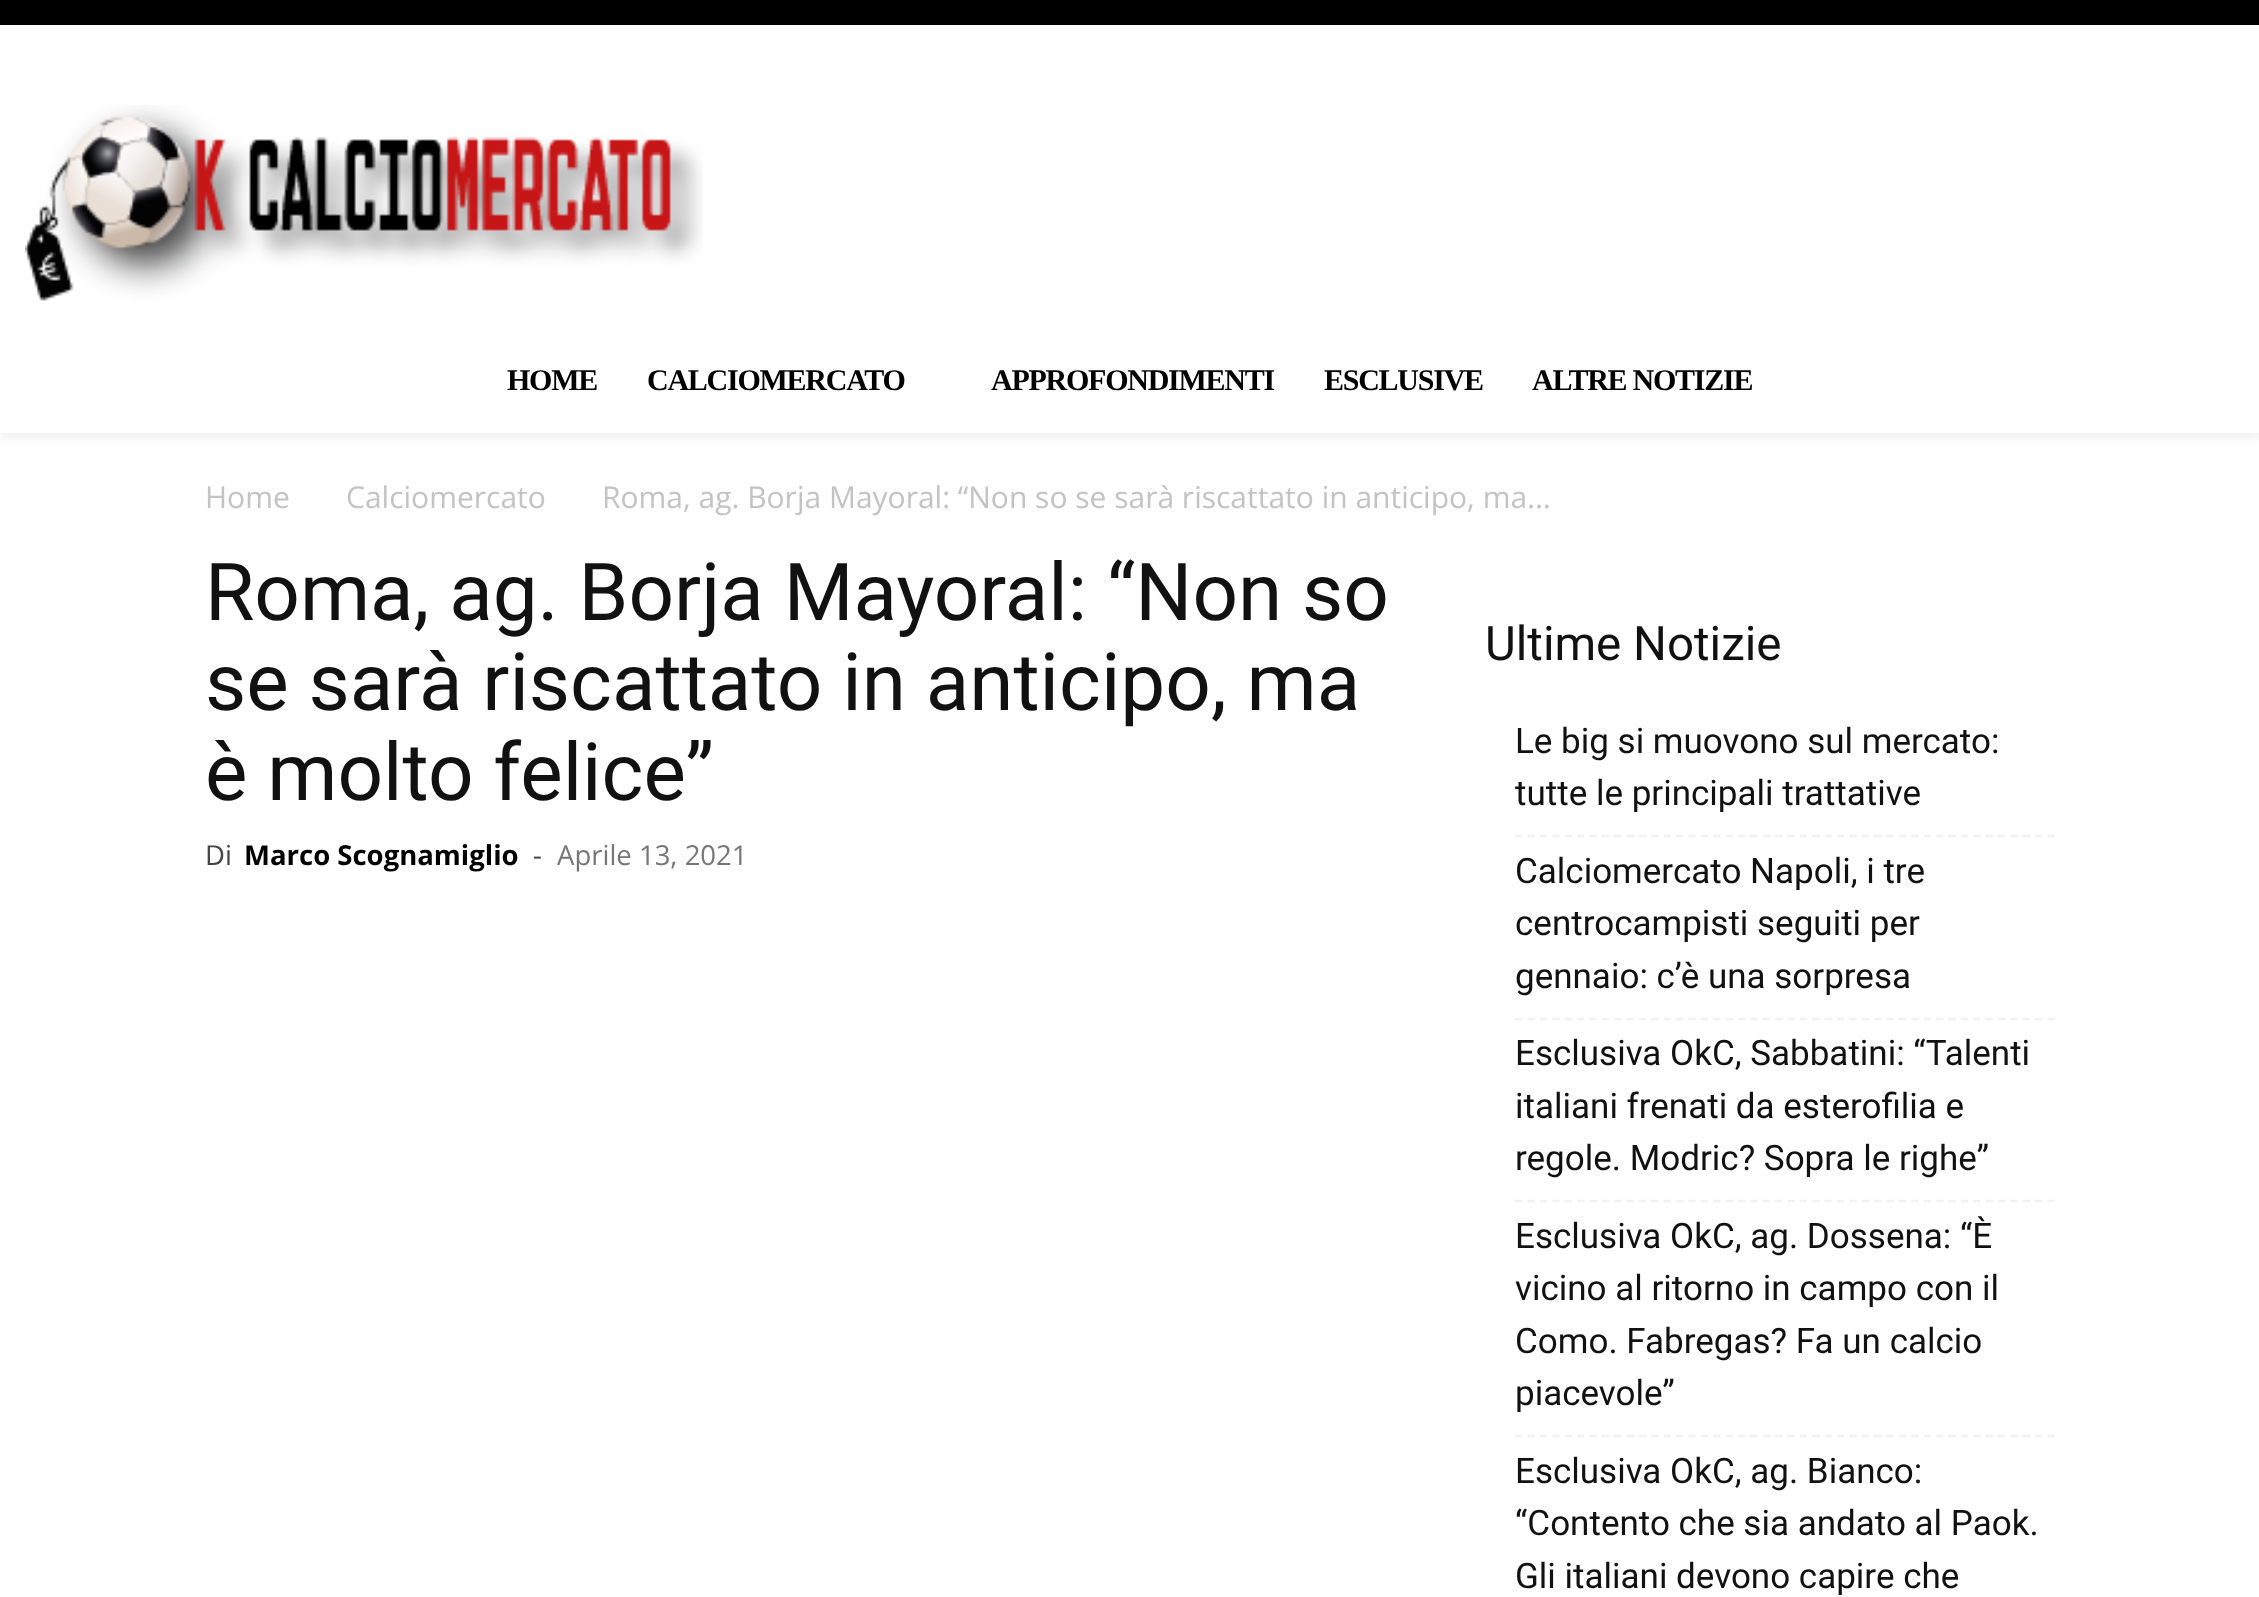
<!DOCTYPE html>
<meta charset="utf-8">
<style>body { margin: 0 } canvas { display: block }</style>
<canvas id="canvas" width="2259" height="1597"></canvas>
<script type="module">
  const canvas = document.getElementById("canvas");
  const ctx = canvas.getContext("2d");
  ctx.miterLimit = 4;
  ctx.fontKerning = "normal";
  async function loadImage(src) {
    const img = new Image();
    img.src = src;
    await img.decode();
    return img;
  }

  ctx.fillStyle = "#ffffff";
  ctx.fillRect(0, 0, 2259, 1597);
  ctx.fillStyle = "#000000";
  ctx.fillRect(0, 0, 2259, 25);
  ctx.drawImage(await loadImage("img1.png"), 25, 105, 678, 196);
  ctx.save();
  ctx.beginPath();
  ctx.moveTo(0, 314);
  ctx.lineTo(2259, 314);
  ctx.lineTo(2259, 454);
  ctx.lineTo(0, 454);
  ctx.closePath();
  ctx.moveTo(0, 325);
  ctx.lineTo(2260, 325);
  ctx.lineTo(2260, 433);
  ctx.lineTo(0, 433);
  ctx.closePath();
  ctx.clip("evenodd");
  ctx.fillStyle = "rgba(0, 0, 0, 0.06)";
  ctx.filter = "blur(5px)";
  ctx.beginPath();
  ctx.rect(0, 330, 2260, 108);
  ctx.fill();
  ctx.filter = "none";
  ctx.restore();
  ctx.letterSpacing = "-1.25px";
  ctx.font = "bold 30px Liberation Serif";
  ctx.fillText("HOME", 507, 390);
  ctx.fillText("CALCIOMERCATO", 647, 390);
  ctx.fillText("APPROFONDIMENTI", 991, 390);
  ctx.fillText("ESCLUSIVE", 1324, 390);
  ctx.fillText("ALTRE NOTIZIE", 1532, 390);
  ctx.letterSpacing = "0px";
  ctx.font = "30px Open Sans";
  ctx.fillStyle = "#c3c3c3";
  ctx.fillText("Home", 205, 508);
  ctx.fillText("Calciomercato", 346, 508);
  ctx.fillText("Roma, ag. Borja Mayoral: “Non so se sarà riscattato in anticipo, ma...", 602, 508);
  ctx.font = "80px Roboto";
  ctx.fillStyle = "#111111";
  ctx.fillText("Roma, ag. Borja Mayoral: “Non so", 205, 620);
  ctx.fillText("se sarà riscattato in anticipo, ma", 205, 710);
  ctx.fillText("è molto felice”", 205, 800);
  ctx.font = "27.5px Open Sans";
  ctx.fillStyle = "#444444";
  ctx.fillText("Di", 205, 865);
  ctx.font = "bold 27.5px Open Sans";
  ctx.fillStyle = "#000000";
  ctx.fillText("Marco Scognamiglio", 244, 865);
  ctx.font = "27.5px Open Sans";
  ctx.fillStyle = "#444444";
  ctx.fillText("-", 533, 865);
  ctx.fillStyle = "#767676";
  ctx.fillText("Aprile 13, 2021", 557, 865);
  ctx.font = "47.5px Roboto";
  ctx.fillStyle = "#111111";
  ctx.fillText("Ultime Notizie", 1485, 660);
  ctx.beginPath();
  ctx.moveTo(1515, 836);
  ctx.lineTo(2055, 836);
  ctx.strokeStyle = "#f1f1f1";
  ctx.lineWidth = 2.5;
  ctx.setLineDash([7.5, 4.88]);
  ctx.stroke();
  ctx.font = "35px Roboto";
  ctx.fillText("Le big si muovono sul mercato:", 1515, 753);
  ctx.fillText("tutte le principali trattative", 1515, 805);
  ctx.beginPath();
  ctx.moveTo(1515, 1019);
  ctx.lineTo(2055, 1019);
  ctx.stroke();
  ctx.fillText("Calciomercato Napoli, i tre", 1515, 883);
  ctx.fillText("centrocampisti seguiti per", 1515, 935);
  ctx.fillText("gennaio: c’è una sorpresa", 1515, 988);
  ctx.beginPath();
  ctx.moveTo(1515, 1201);
  ctx.lineTo(2055, 1201);
  ctx.stroke();
  ctx.fillText("Esclusiva OkC, Sabbatini: “Talenti", 1515, 1065);
  ctx.fillText("italiani frenati da esterofilia e", 1515, 1118);
  ctx.fillText("regole. Modric? Sopra le righe”", 1515, 1170);
  ctx.beginPath();
  ctx.moveTo(1515, 1436);
  ctx.lineTo(2055, 1436);
  ctx.stroke();
  ctx.fillText("Esclusiva OkC, ag. Dossena: “È", 1515, 1248);
  ctx.fillText("vicino al ritorno in campo con il", 1515, 1300);
  ctx.fillText("Como. Fabregas? Fa un calcio", 1515, 1353);
  ctx.fillText("piacevole”", 1515, 1405);
  ctx.fillText("Esclusiva OkC, ag. Bianco:", 1515, 1483);
  ctx.fillText("“Contento che sia andato al Paok.", 1515, 1535);
  ctx.fillText("Gli italiani devono capire che", 1515, 1588);
</script>
